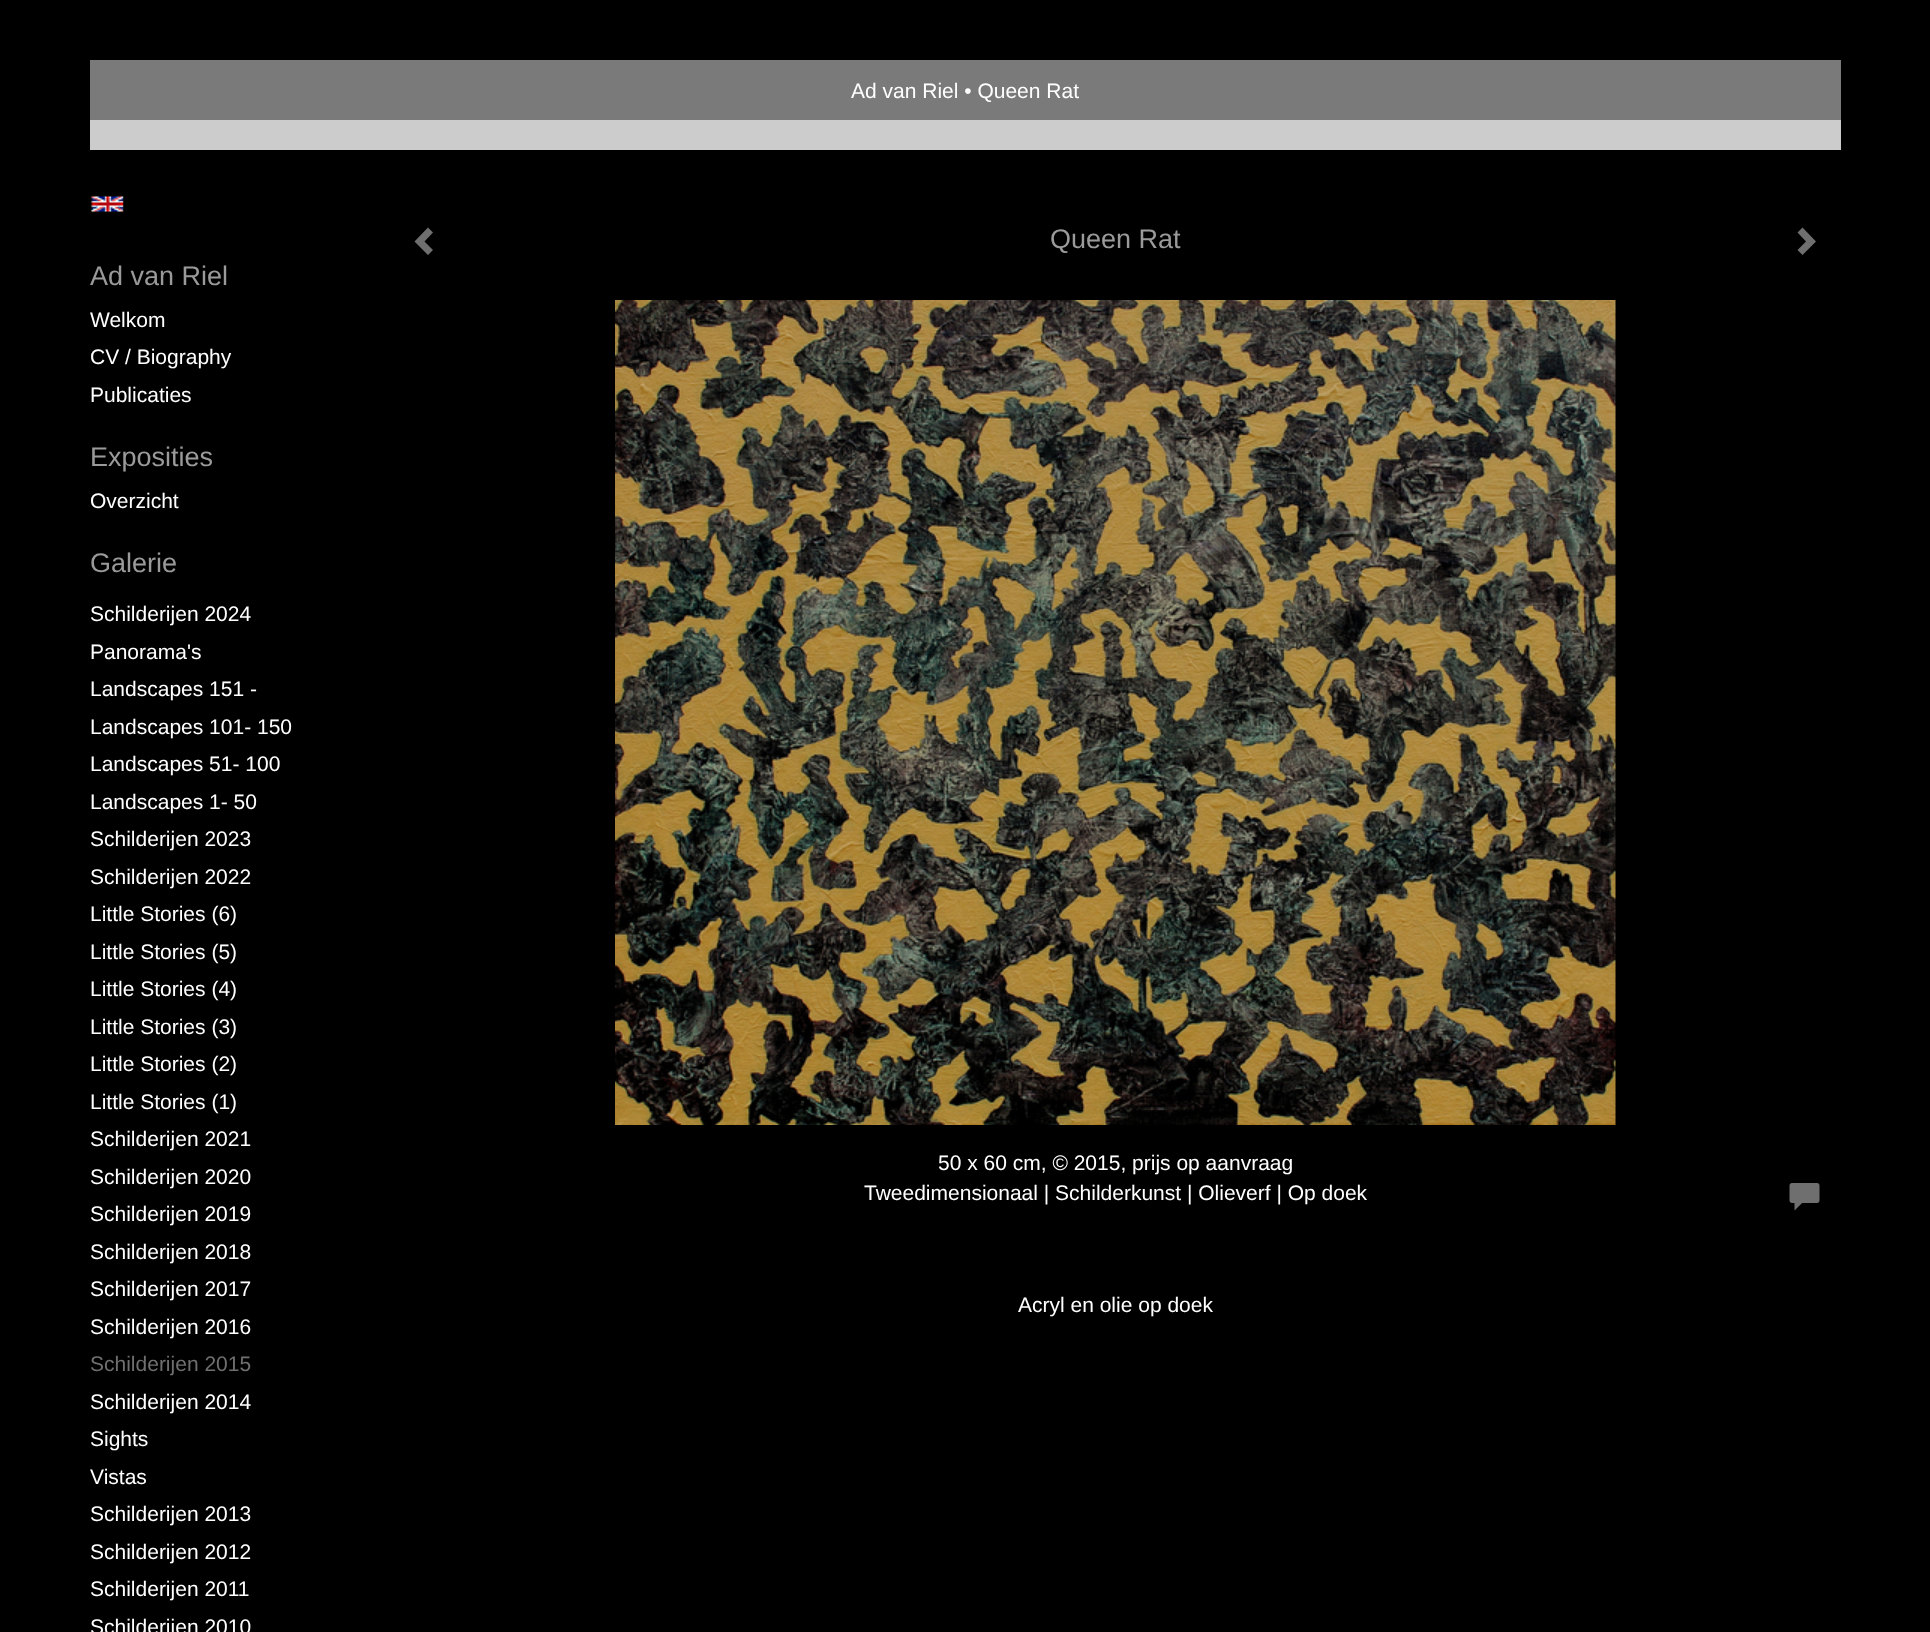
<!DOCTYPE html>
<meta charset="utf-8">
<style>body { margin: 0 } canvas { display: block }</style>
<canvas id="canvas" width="1930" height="1632"></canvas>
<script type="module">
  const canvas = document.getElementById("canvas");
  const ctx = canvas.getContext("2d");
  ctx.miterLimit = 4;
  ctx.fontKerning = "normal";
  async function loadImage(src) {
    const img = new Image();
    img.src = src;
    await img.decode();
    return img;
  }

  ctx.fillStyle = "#000000";
  ctx.fillRect(0, 0, 1930, 1632);
  ctx.fillStyle = "#7a7a7a";
  ctx.fillRect(90, 60, 1751, 60);
  ctx.font = "21px Liberation Sans";
  ctx.fillStyle = "#ffffff";
  ctx.fillText("Ad van Riel • Queen Rat", 851, 98);
  ctx.fillStyle = "#cccccc";
  ctx.fillRect(90, 120, 1751, 30);
  ctx.drawImage(await loadImage("img1.png"), 90, 195, 34, 18);
  ctx.font = "27px Liberation Sans";
  ctx.fillStyle = "#9a9a9a";
  ctx.fillText("Ad van Riel", 90, 285);
  ctx.font = "21px Liberation Sans";
  ctx.fillStyle = "#ffffff";
  ctx.fillText("Welkom", 90, 327);
  ctx.fillText("CV / Biography", 90, 364);
  ctx.fillText("Publicaties", 90, 402);
  ctx.font = "27px Liberation Sans";
  ctx.fillStyle = "#9a9a9a";
  ctx.fillText("Exposities", 90, 466);
  ctx.font = "21px Liberation Sans";
  ctx.fillStyle = "#ffffff";
  ctx.fillText("Overzicht", 90, 508);
  ctx.font = "27px Liberation Sans";
  ctx.fillStyle = "#9a9a9a";
  ctx.fillText("Galerie", 90, 572);
  ctx.font = "21px Liberation Sans";
  ctx.fillStyle = "#ffffff";
  ctx.fillText("Schilderijen 2024", 90, 621);
  ctx.fillText("Panorama's", 90, 659);
  ctx.fillText("Landscapes 151 -", 90, 696);
  ctx.fillText("Landscapes 101- 150", 90, 734);
  ctx.fillText("Landscapes 51- 100", 90, 771);
  ctx.fillText("Landscapes 1- 50", 90, 809);
  ctx.fillText("Schilderijen 2023", 90, 846);
  ctx.fillText("Schilderijen 2022", 90, 884);
  ctx.fillText("Little Stories (6)", 90, 921);
  ctx.fillText("Little Stories (5)", 90, 959);
  ctx.fillText("Little Stories (4)", 90, 996);
  ctx.fillText("Little Stories (3)", 90, 1034);
  ctx.fillText("Little Stories (2)", 90, 1071);
  ctx.fillText("Little Stories (1)", 90, 1109);
  ctx.fillText("Schilderijen 2021", 90, 1146);
  ctx.fillText("Schilderijen 2020", 90, 1184);
  ctx.fillText("Schilderijen 2019", 90, 1221);
  ctx.fillText("Schilderijen 2018", 90, 1259);
  ctx.fillText("Schilderijen 2017", 90, 1296);
  ctx.fillText("Schilderijen 2016", 90, 1334);
  ctx.fillStyle = "#6f6f6f";
  ctx.fillText("Schilderijen 2015", 90, 1371);
  ctx.fillStyle = "#ffffff";
  ctx.fillText("Schilderijen 2014", 90, 1409);
  ctx.fillText("Sights", 90, 1446);
  ctx.fillText("Vistas", 90, 1484);
  ctx.fillText("Schilderijen 2013", 90, 1521);
  ctx.fillText("Schilderijen 2012", 90, 1559);
  ctx.fillText("Schilderijen 2011", 90, 1596);
  ctx.fillText("Schilderijen 2010", 90, 1634);
  ctx.fillStyle = "#6f6f6f";
  ctx.beginPath();
  ctx.moveTo(433, 232.5);
  ctx.lineTo(424.5, 241.5);
  ctx.lineTo(433, 250);
  ctx.lineTo(428, 255);
  ctx.lineTo(414.5, 241.5);
  ctx.lineTo(428, 227.5);
  ctx.closePath();
  ctx.fill();
  ctx.font = "27px Liberation Sans";
  ctx.fillStyle = "#9a9a9a";
  ctx.fillText("Queen Rat", 1050, 248);
  ctx.fillStyle = "#6f6f6f";
  ctx.beginPath();
  ctx.moveTo(1816, 241.5);
  ctx.lineTo(1802.5, 255);
  ctx.lineTo(1797.5, 250);
  ctx.lineTo(1806, 241.5);
  ctx.lineTo(1797.5, 232.5);
  ctx.lineTo(1802.5, 227.5);
  ctx.closePath();
  ctx.fill();
  ctx.drawImage(await loadImage("img2.png"), 615, 300, 1001, 825);
  ctx.font = "21px Liberation Sans";
  ctx.fillStyle = "#ffffff";
  ctx.fillText("50 x 60 cm, © 2015, prijs op aanvraag", 938, 1170);
  ctx.fillText("Tweedimensionaal | Schilderkunst | Olieverf | Op doek", 864, 1200);
  ctx.drawImage(await loadImage("img3.png"), 1789, 1183, 31, 28);
  ctx.fillText("Acryl en olie op doek", 1018, 1312);
</script>
